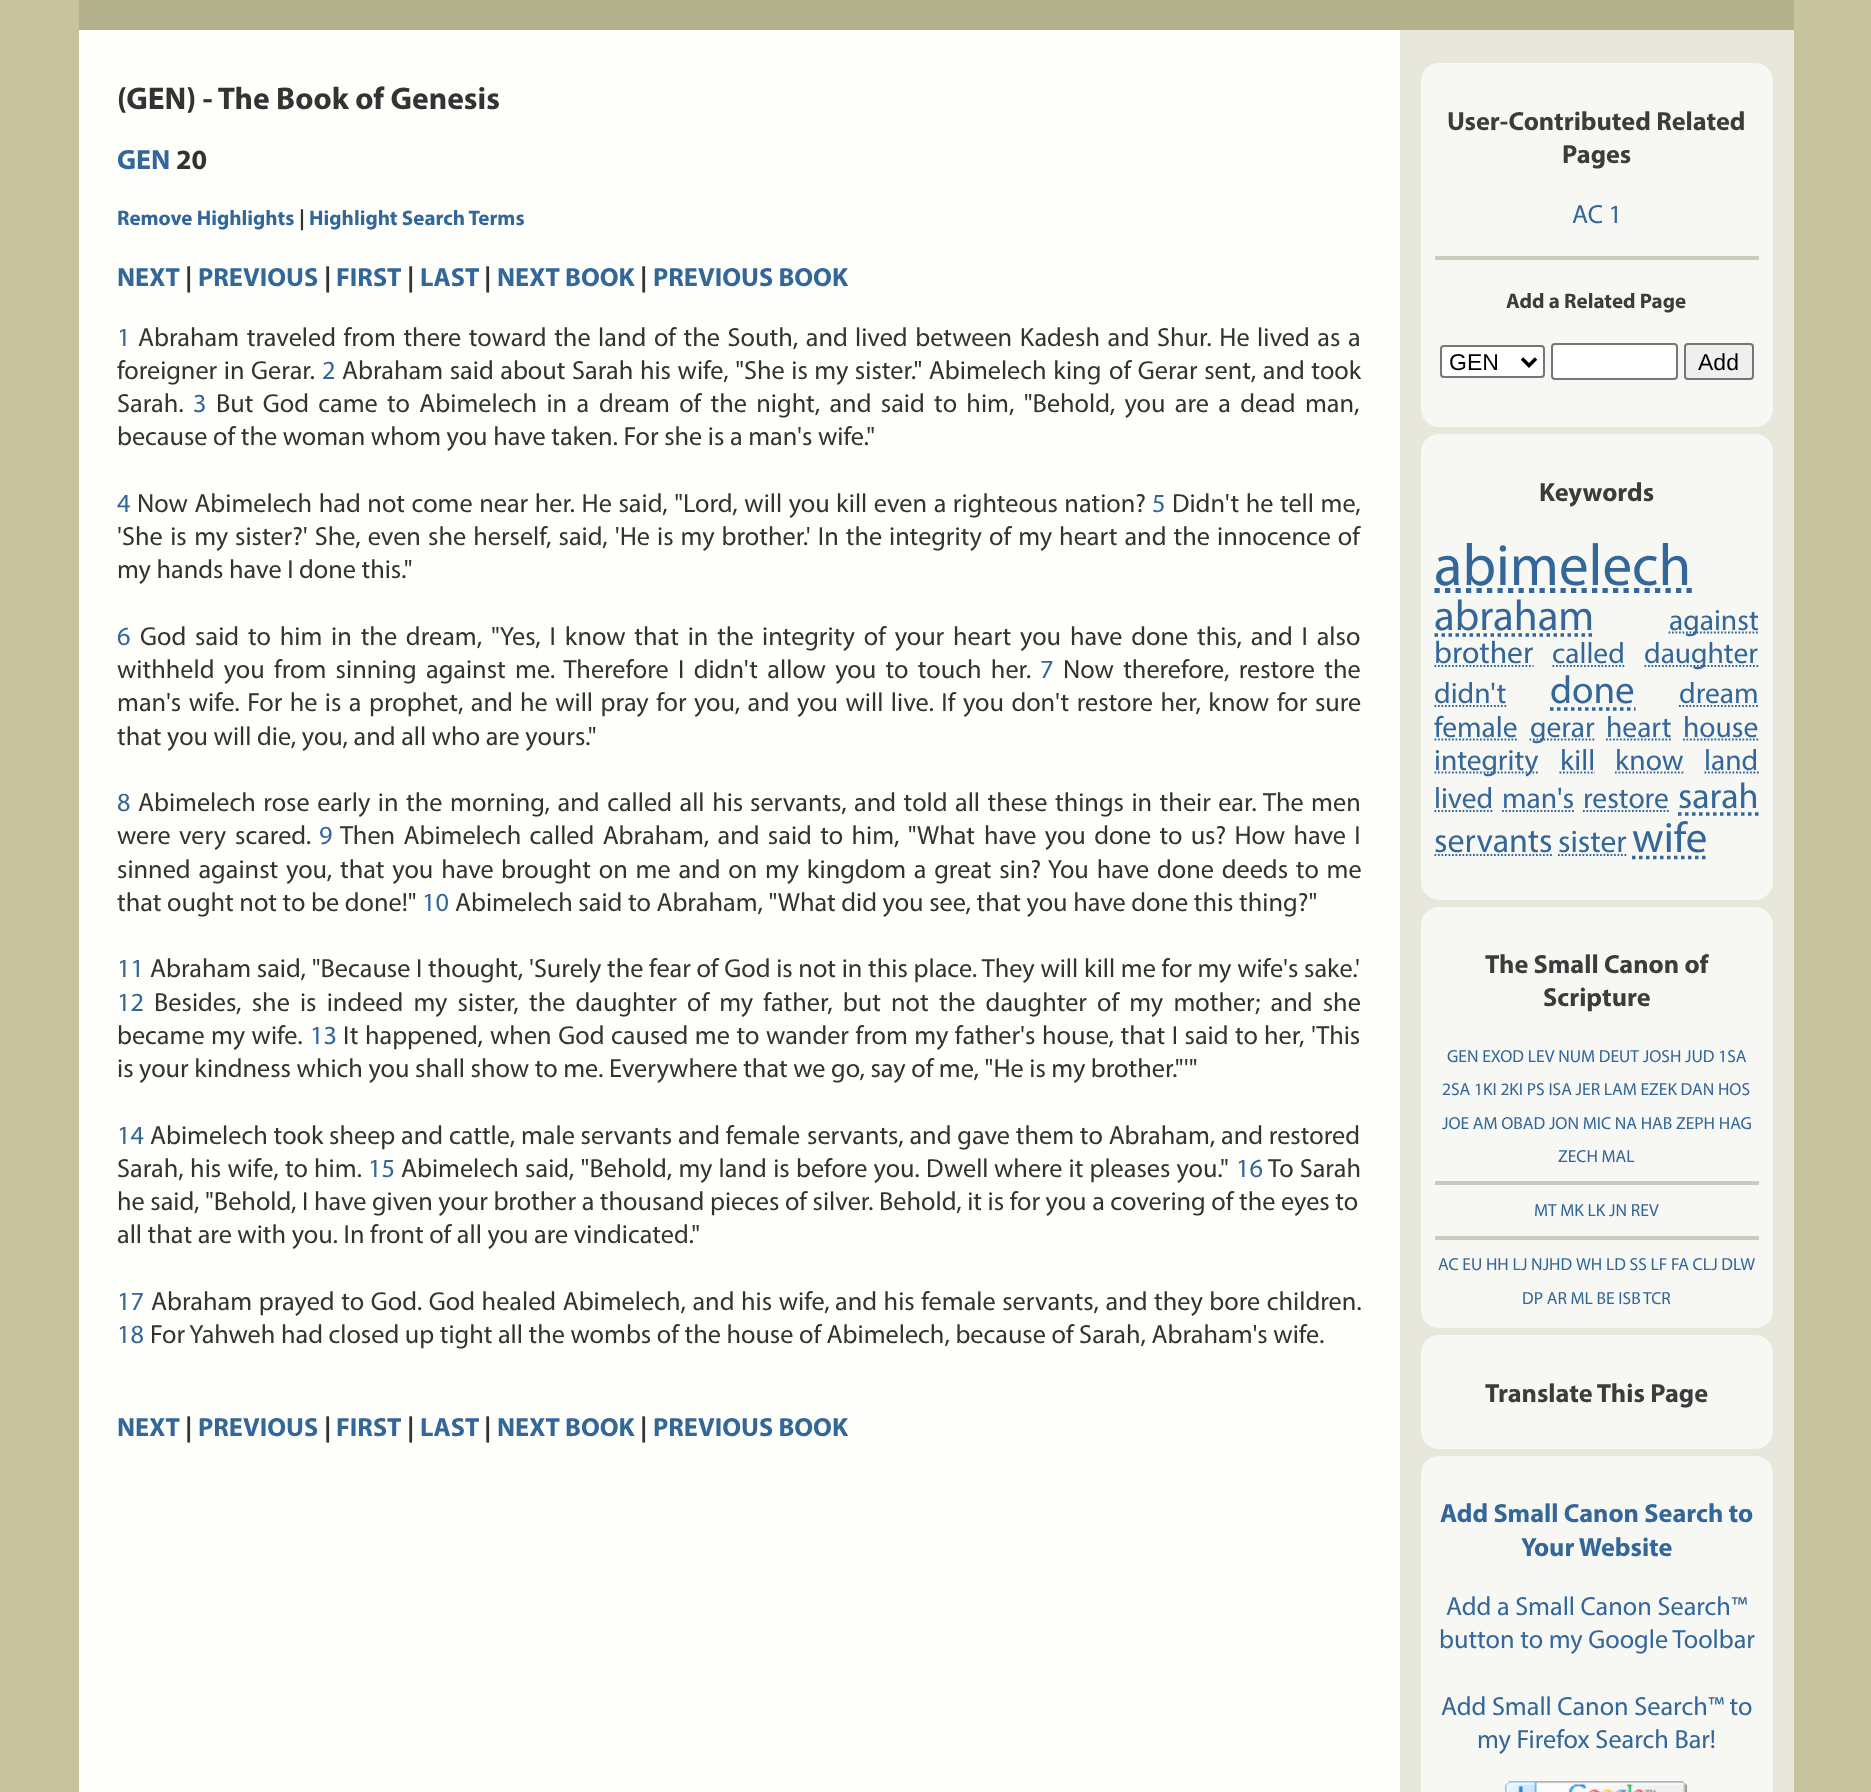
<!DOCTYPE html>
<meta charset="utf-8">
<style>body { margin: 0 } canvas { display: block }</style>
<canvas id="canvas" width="1871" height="1792"></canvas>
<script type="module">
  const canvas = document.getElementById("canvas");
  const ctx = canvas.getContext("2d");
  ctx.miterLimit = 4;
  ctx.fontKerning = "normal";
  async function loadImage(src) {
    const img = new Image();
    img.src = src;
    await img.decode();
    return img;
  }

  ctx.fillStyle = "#c6c39d";
  ctx.fillRect(0, 0, 1871, 1792);
  ctx.fillStyle = "#b2b18c";
  ctx.fillRect(79, 0, 1715, 30);
  ctx.fillStyle = "#fefffb";
  ctx.fillRect(79, 30, 1321, 1762);
  ctx.font = "bold 31.5px Myriad";
  ctx.fillStyle = "#333333";
  ctx.fillText("(GEN) - The Book of Genesis", 117, 109);
  ctx.font = "bold 28px Myriad";
  ctx.fillStyle = "#336699";
  ctx.fillText("GEN", 117, 169);
  ctx.fillStyle = "#333333";
  ctx.fillText("20", 176, 169);
  ctx.font = "bold 21px Myriad";
  ctx.fillStyle = "#336699";
  ctx.fillText("Remove Highlights", 117, 225);
  ctx.fillStyle = "#333333";
  ctx.fillText("|", 299, 225);
  ctx.fillStyle = "#336699";
  ctx.fillText("Highlight Search Terms", 309, 225);
  ctx.font = "bold 26.25px Myriad";
  ctx.fillText("NEXT", 117, 286);
  ctx.fillStyle = "#333333";
  ctx.fillText("|", 185, 286);
  ctx.fillStyle = "#336699";
  ctx.fillText("PREVIOUS", 198, 286);
  ctx.fillStyle = "#333333";
  ctx.fillText("|", 324, 286);
  ctx.fillStyle = "#336699";
  ctx.fillText("FIRST", 336, 286);
  ctx.fillStyle = "#333333";
  ctx.fillText("|", 407, 286);
  ctx.fillStyle = "#336699";
  ctx.fillText("LAST", 420, 286);
  ctx.fillStyle = "#333333";
  ctx.fillText("|", 484, 286);
  ctx.fillStyle = "#336699";
  ctx.fillText("NEXT BOOK", 497, 286);
  ctx.fillStyle = "#333333";
  ctx.fillText("|", 640, 286);
  ctx.fillStyle = "#336699";
  ctx.fillText("PREVIOUS BOOK", 653, 286);
  ctx.font = "26.25px Myriad";
  ctx.fillText("1", 117, 346);
  ctx.wordSpacing = "2px";
  ctx.fillStyle = "#333333";
  ctx.fillText("Abraham traveled from there toward the land of the South, and", 138, 346);
  ctx.fillText("lived between Kadesh and Shur. He lived as a", 855, 346);
  ctx.wordSpacing = "1px";
  ctx.fillText("foreigner in Gerar.", 117, 379);
  ctx.wordSpacing = "0px";
  ctx.fillStyle = "#336699";
  ctx.fillText("2", 322, 379);
  ctx.wordSpacing = "1px";
  ctx.fillStyle = "#333333";
  ctx.fillText("Abraham said about Sarah his wife, \"She is my sister.\" Abimelech king", 342, 379);
  ctx.fillText("of Gerar sent, and took", 1109, 379);
  ctx.wordSpacing = "0px";
  ctx.fillText("Sarah.", 117, 412);
  ctx.fillStyle = "#336699";
  ctx.fillText("3", 193, 412);
  ctx.wordSpacing = "3.75px";
  ctx.fillStyle = "#333333";
  ctx.fillText("But God came to Abimelech in a", 216, 412);
  ctx.fillText("dream of the night, and said to him, \"Behold, you are a dead man,", 599, 412);
  ctx.wordSpacing = "0px";
  ctx.fillText("because of the woman whom you have taken. For she is a man's wife.\"", 117, 445);
  ctx.fillStyle = "#336699";
  ctx.fillText("4", 117, 512);
  ctx.wordSpacing = "1px";
  ctx.fillStyle = "#333333";
  ctx.fillText("Now Abimelech had not come near her. He said, \"Lord, will you", 137, 512);
  ctx.fillText("kill even a righteous nation?", 836, 512);
  ctx.wordSpacing = "0px";
  ctx.fillStyle = "#336699";
  ctx.fillText("5", 1152, 512);
  ctx.wordSpacing = "1px";
  ctx.fillStyle = "#333333";
  ctx.fillText("Didn't he tell me,", 1172, 512);
  ctx.wordSpacing = "2px";
  ctx.fillText("'She is my", 117, 545);
  ctx.wordSpacing = "1.5px";
  ctx.fillText("sister?' She, even she herself, said, 'He is my brother.' In the", 235, 545);
  ctx.fillText("integrity of my heart and the innocence of", 889, 545);
  ctx.wordSpacing = "0px";
  ctx.fillText("my hands have I done this.\"", 117, 578);
  ctx.fillStyle = "#336699";
  ctx.fillText("6", 117, 645);
  ctx.wordSpacing = "3.25px";
  ctx.fillStyle = "#333333";
  ctx.fillText("God said to him in the dream, \"Yes, I know that in the", 140, 645);
  ctx.fillText("integrity of your heart you have done this, and I also", 762, 645);
  ctx.wordSpacing = "3.75px";
  ctx.fillText("withheld you", 117, 678);
  ctx.fillText("from sinning against me. Therefore I didn't allow you to touch her.", 274, 678);
  ctx.wordSpacing = "0px";
  ctx.fillStyle = "#336699";
  ctx.fillText("7", 1040, 678);
  ctx.wordSpacing = "3.75px";
  ctx.fillStyle = "#333333";
  ctx.fillText("Now therefore, restore the", 1063, 678);
  ctx.wordSpacing = "1.9px";
  ctx.fillText("man's wife. For he is a prophet, and", 117, 711);
  ctx.fillText("he will pray for you, and you will live. If you don't restore her, know", 520, 711);
  ctx.wordSpacing = "2px";
  ctx.fillText("for sure", 1277, 711);
  ctx.wordSpacing = "0px";
  ctx.fillText("that you will die, you, and all who are yours.\"", 117, 745);
  ctx.fillStyle = "#336699";
  ctx.fillText("8", 117, 811);
  ctx.wordSpacing = "2px";
  ctx.fillStyle = "#333333";
  ctx.fillText("Abimelech rose early in the morning, and called all his", 138, 811);
  ctx.wordSpacing = "1.9px";
  ctx.fillText("servants, and told all these things in their ear. The men", 750, 811);
  ctx.wordSpacing = "2.75px";
  ctx.fillText("were very", 117, 844);
  ctx.wordSpacing = "0px";
  ctx.fillText("scared.", 235, 844);
  ctx.fillStyle = "#336699";
  ctx.fillText("9", 319, 844);
  ctx.wordSpacing = "2.75px";
  ctx.fillStyle = "#333333";
  ctx.fillText("Then Abimelech called Abraham, and said to him, \"What", 340, 844);
  ctx.fillText("have you done to us? How have I", 984, 844);
  ctx.wordSpacing = "2.25px";
  ctx.fillText("sinned against you, that you have", 117, 878);
  ctx.fillText("brought on me and on my kingdom a great sin? You have done deeds to me", 501, 878);
  ctx.wordSpacing = "0px";
  ctx.fillText("that ought not to be done!\"", 117, 911);
  ctx.fillStyle = "#336699";
  ctx.fillText("10", 422, 911);
  ctx.fillStyle = "#333333";
  ctx.fillText("Abimelech said to Abraham, \"What did you see, that you have done this thing?\"", 455, 911);
  ctx.fillStyle = "#336699";
  ctx.fillText("11", 117, 977);
  ctx.wordSpacing = "0.1px";
  ctx.fillStyle = "#333333";
  ctx.fillText("Abraham said, \"Because I thought, 'Surely the fear of God is not in this place. They will kill me for my wife's sake.'", 150, 977);
  ctx.wordSpacing = "0px";
  ctx.fillStyle = "#336699";
  ctx.fillText("12", 117, 1011);
  ctx.wordSpacing = "4.6px";
  ctx.fillStyle = "#333333";
  ctx.fillText("Besides, she is indeed my sister, the daughter of my father, but not", 154, 1011);
  ctx.fillText("the daughter of my mother; and she", 939, 1011);
  ctx.wordSpacing = "1px";
  ctx.fillText("became my wife.", 117, 1044);
  ctx.wordSpacing = "0px";
  ctx.fillStyle = "#336699";
  ctx.fillText("13", 310, 1044);
  ctx.wordSpacing = "1px";
  ctx.fillStyle = "#333333";
  ctx.fillText("It happened,", 343, 1044);
  ctx.fillText("when God caused me to wander from my father's house, that I said to", 490, 1044);
  ctx.fillText("her, 'This", 1264, 1044);
  ctx.wordSpacing = "0px";
  ctx.fillText("is your kindness which you shall show to me. Everywhere that we go, say of me, \"He is my brother.\"'\"", 117, 1077);
  ctx.fillStyle = "#336699";
  ctx.fillText("14", 117, 1144);
  ctx.wordSpacing = "0.25px";
  ctx.fillStyle = "#333333";
  ctx.fillText("Abimelech took sheep and cattle, male servants and female", 150, 1144);
  ctx.fillText("servants, and gave them to Abraham, and restored", 807, 1144);
  ctx.wordSpacing = "0.75px";
  ctx.fillText("Sarah, his wife, to", 117, 1177);
  ctx.wordSpacing = "0px";
  ctx.fillText("him.", 314, 1177);
  ctx.fillStyle = "#336699";
  ctx.fillText("15", 368, 1177);
  ctx.wordSpacing = "0.75px";
  ctx.fillStyle = "#333333";
  ctx.fillText("Abimelech said, \"Behold, my land is before you. Dwell", 401, 1177);
  ctx.wordSpacing = "0.5px";
  ctx.fillText("where it pleases you.\"", 994, 1177);
  ctx.wordSpacing = "0px";
  ctx.fillStyle = "#336699";
  ctx.fillText("16", 1236, 1177);
  ctx.wordSpacing = "0.5px";
  ctx.fillStyle = "#333333";
  ctx.fillText("To Sarah", 1268, 1177);
  ctx.wordSpacing = "0px";
  ctx.fillText("he said, \"Behold, I have given your brother a thousand pieces of silver. Behold, it is for you a covering of the eyes to", 117, 1210);
  ctx.fillText("all that are with you. In front of all you are vindicated.\"", 117, 1243);
  ctx.fillStyle = "#336699";
  ctx.fillText("17", 117, 1310);
  ctx.wordSpacing = "1px";
  ctx.fillStyle = "#333333";
  ctx.fillText("Abraham prayed to God. God healed Abimelech, and his wife,", 151, 1310);
  ctx.fillText("and his female servants, and they bore children.", 835, 1310);
  ctx.wordSpacing = "0px";
  ctx.fillStyle = "#336699";
  ctx.fillText("18", 117, 1343);
  ctx.fillStyle = "#333333";
  ctx.fillText("For Yahweh had closed up tight all the wombs of the house of Abimelech, because of Sarah, Abraham's wife.", 150, 1343);
  ctx.font = "bold 26.25px Myriad";
  ctx.fillStyle = "#336699";
  ctx.fillText("NEXT", 117, 1436);
  ctx.fillStyle = "#333333";
  ctx.fillText("|", 185, 1436);
  ctx.fillStyle = "#336699";
  ctx.fillText("PREVIOUS", 198, 1436);
  ctx.fillStyle = "#333333";
  ctx.fillText("|", 324, 1436);
  ctx.fillStyle = "#336699";
  ctx.fillText("FIRST", 336, 1436);
  ctx.fillStyle = "#333333";
  ctx.fillText("|", 407, 1436);
  ctx.fillStyle = "#336699";
  ctx.fillText("LAST", 420, 1436);
  ctx.fillStyle = "#333333";
  ctx.fillText("|", 484, 1436);
  ctx.fillStyle = "#336699";
  ctx.fillText("NEXT BOOK", 497, 1436);
  ctx.fillStyle = "#333333";
  ctx.fillText("|", 640, 1436);
  ctx.fillStyle = "#336699";
  ctx.fillText("PREVIOUS BOOK", 653, 1436);
  ctx.fillStyle = "#e8e7dc";
  ctx.fillRect(1400, 30, 394, 1762);
  ctx.fillStyle = "#f7f7f3";
  ctx.beginPath();
  ctx.roundRect(1421, 63, 352, 364, 18);
  ctx.fill();
  ctx.fillStyle = "#3c3c3c";
  ctx.fillText("User-Contributed Related", 1447, 130);
  ctx.fillText("Pages", 1562, 163);
  ctx.font = "26.25px Myriad";
  ctx.fillStyle = "#336699";
  ctx.fillText("AC 1", 1572, 223);
  ctx.fillStyle = "#cdcabf";
  ctx.fillRect(1435, 256, 324, 4);
  ctx.font = "bold 21px Myriad";
  ctx.fillStyle = "#3c3c3c";
  ctx.fillText("Add a Related Page", 1506, 308);
  ctx.fillStyle = "#ffffff";
  ctx.beginPath();
  ctx.roundRect(1441, 346, 103, 31, 3);
  ctx.fill();
  ctx.strokeStyle = "#767676";
  ctx.lineWidth = 2;
  ctx.stroke();
  ctx.beginPath();
  ctx.moveTo(1522, 358.5);
  ctx.lineTo(1529, 365.5);
  ctx.lineTo(1536, 358.5);
  ctx.strokeStyle = "#000000";
  ctx.lineWidth = 3.5;
  ctx.stroke();
  ctx.font = "23px Liberation Sans";
  ctx.fillStyle = "#000000";
  ctx.fillText("GEN", 1449, 370);
  ctx.fillStyle = "#ffffff";
  ctx.beginPath();
  ctx.roundRect(1552, 344, 125, 35, 3);
  ctx.fill();
  ctx.strokeStyle = "#767676";
  ctx.lineWidth = 2;
  ctx.stroke();
  ctx.fillStyle = "#efefef";
  ctx.beginPath();
  ctx.roundRect(1685, 344, 68, 35, 3);
  ctx.fill();
  ctx.stroke();
  ctx.fillStyle = "#000000";
  ctx.fillText("Add", 1698, 370);
  ctx.fillStyle = "#f7f7f3";
  ctx.beginPath();
  ctx.roundRect(1421, 434, 352, 466, 18);
  ctx.fill();
  ctx.font = "bold 26.25px Myriad";
  ctx.fillStyle = "#3c3c3c";
  ctx.fillText("Keywords", 1539, 501);
  ctx.font = "59px Myriad";
  ctx.fillStyle = "#336699";
  ctx.fillText("abimelech", 1434, 585);
  ctx.beginPath();
  ctx.moveTo(1434.5, 590.5);
  ctx.lineTo(1692, 590.5);
  ctx.strokeStyle = "#336699";
  ctx.lineWidth = 5.2;
  ctx.setLineDash([5.25, 5.25]);
  ctx.stroke();
  ctx.font = "43px Myriad";
  ctx.fillText("abraham", 1434, 630);
  ctx.beginPath();
  ctx.moveTo(1434.5, 635);
  ctx.lineTo(1594.5, 635);
  ctx.lineWidth = 3.5;
  ctx.setLineDash([3.5, 3.5]);
  ctx.stroke();
  ctx.beginPath();
  ctx.moveTo(1668.5, 632.5);
  ctx.lineTo(1759, 632.5);
  ctx.lineWidth = 1.8;
  ctx.setLineDash([1.75, 1.75]);
  ctx.stroke();
  ctx.font = "29.5px Myriad";
  ctx.fillText("against", 1669, 630);
  ctx.font = "31.5px Myriad";
  ctx.fillText("brother", 1434, 663);
  ctx.beginPath();
  ctx.moveTo(1434.5, 666);
  ctx.lineTo(1533.5, 666);
  ctx.stroke();
  ctx.font = "29.5px Myriad";
  ctx.fillText("called", 1552, 663);
  ctx.beginPath();
  ctx.moveTo(1552.5, 666);
  ctx.lineTo(1625.5, 666);
  ctx.stroke();
  ctx.beginPath();
  ctx.moveTo(1644.5, 666);
  ctx.lineTo(1759, 666);
  ctx.stroke();
  ctx.fillText("daughter", 1644, 663);
  ctx.fillText("didn't", 1434, 703);
  ctx.beginPath();
  ctx.moveTo(1434.5, 706);
  ctx.lineTo(1507, 706);
  ctx.stroke();
  ctx.font = "39px Myriad";
  ctx.fillText("done", 1550, 703);
  ctx.beginPath();
  ctx.moveTo(1550, 709);
  ctx.lineTo(1635.5, 709);
  ctx.lineWidth = 3.5;
  ctx.setLineDash([3.5, 3.5]);
  ctx.stroke();
  ctx.font = "29.5px Myriad";
  ctx.fillText("dream", 1679, 703);
  ctx.beginPath();
  ctx.moveTo(1679, 706);
  ctx.lineTo(1759, 706);
  ctx.lineWidth = 1.8;
  ctx.setLineDash([1.75, 1.75]);
  ctx.stroke();
  ctx.fillText("female", 1434, 737);
  ctx.beginPath();
  ctx.moveTo(1434.5, 739.5);
  ctx.lineTo(1518.5, 739.5);
  ctx.stroke();
  ctx.beginPath();
  ctx.moveTo(1529.5, 739.5);
  ctx.lineTo(1594.5, 739.5);
  ctx.stroke();
  ctx.fillText("gerar", 1530, 737);
  ctx.fillText("heart", 1606, 737);
  ctx.beginPath();
  ctx.moveTo(1606, 739.5);
  ctx.lineTo(1671.5, 739.5);
  ctx.stroke();
  ctx.fillText("house", 1683, 737);
  ctx.beginPath();
  ctx.moveTo(1683, 739.5);
  ctx.lineTo(1759, 739.5);
  ctx.stroke();
  ctx.beginPath();
  ctx.moveTo(1434.5, 772.5);
  ctx.lineTo(1539, 772.5);
  ctx.stroke();
  ctx.fillText("integrity", 1434, 770);
  ctx.fillText("kill", 1560, 770);
  ctx.beginPath();
  ctx.moveTo(1559.5, 772.5);
  ctx.lineTo(1595, 772.5);
  ctx.stroke();
  ctx.fillText("know", 1615, 770);
  ctx.beginPath();
  ctx.moveTo(1615, 772.5);
  ctx.lineTo(1684, 772.5);
  ctx.stroke();
  ctx.fillText("land", 1704, 770);
  ctx.beginPath();
  ctx.moveTo(1704.5, 772.5);
  ctx.lineTo(1759, 772.5);
  ctx.stroke();
  ctx.fillText("lived", 1434, 808);
  ctx.beginPath();
  ctx.moveTo(1434.5, 811);
  ctx.lineTo(1494, 811);
  ctx.stroke();
  ctx.fillText("man's", 1502, 808);
  ctx.beginPath();
  ctx.moveTo(1502, 811);
  ctx.lineTo(1575, 811);
  ctx.stroke();
  ctx.fillText("restore", 1583, 808);
  ctx.beginPath();
  ctx.moveTo(1583, 811);
  ctx.lineTo(1669.5, 811);
  ctx.stroke();
  ctx.font = "36px Myriad";
  ctx.fillText("sarah", 1678, 808);
  ctx.beginPath();
  ctx.moveTo(1678, 814);
  ctx.lineTo(1759, 814);
  ctx.lineWidth = 3.5;
  ctx.setLineDash([3.5, 3.5]);
  ctx.stroke();
  ctx.font = "34px Myriad";
  ctx.fillText("servants", 1434, 852);
  ctx.beginPath();
  ctx.moveTo(1434.5, 855);
  ctx.lineTo(1552.5, 855);
  ctx.lineWidth = 1.8;
  ctx.setLineDash([1.75, 1.75]);
  ctx.stroke();
  ctx.font = "31.5px Myriad";
  ctx.fillText("sister", 1558, 852);
  ctx.beginPath();
  ctx.moveTo(1558, 855);
  ctx.lineTo(1626.5, 855);
  ctx.stroke();
  ctx.font = "43px Myriad";
  ctx.fillText("wife", 1632, 852);
  ctx.beginPath();
  ctx.moveTo(1632, 857.5);
  ctx.lineTo(1707.5, 857.5);
  ctx.lineWidth = 3.5;
  ctx.setLineDash([3.5, 3.5]);
  ctx.stroke();
  ctx.fillStyle = "#f7f7f3";
  ctx.beginPath();
  ctx.roundRect(1421, 907, 352, 421, 18);
  ctx.fill();
  ctx.font = "bold 26.25px Myriad";
  ctx.fillStyle = "#3c3c3c";
  ctx.fillText("The Small Canon of", 1485, 973);
  ctx.fillText("Scripture", 1543, 1006);
  ctx.font = "17.5px Myriad";
  ctx.fillStyle = "#336699";
  ctx.fillText("GEN EXOD LEV NUM DEUT JOSH JUD 1SA", 1447, 1062);
  ctx.fillText("2SA 1KI 2KI PS ISA JER LAM EZEK DAN HOS", 1442, 1095);
  ctx.fillText("JOE AM OBAD JON MIC NA HAB ZEPH HAG", 1442, 1129);
  ctx.fillText("ZECH MAL", 1558, 1162);
  ctx.fillStyle = "#cdcabf";
  ctx.fillRect(1435, 1181, 324, 4);
  ctx.fillStyle = "#336699";
  ctx.fillText("MT MK LK JN REV", 1534, 1216);
  ctx.fillStyle = "#cdcabf";
  ctx.fillRect(1435, 1236, 324, 4);
  ctx.fillStyle = "#336699";
  ctx.fillText("AC EU HH LJ NJHD", 1438, 1270);
  ctx.fillText("WH LD SS LF FA CLJ DLW", 1576, 1270);
  ctx.fillText("DP AR ML BE ISB", 1522, 1304);
  ctx.fillText("TCR", 1643, 1304);
  ctx.fillStyle = "#f7f7f3";
  ctx.beginPath();
  ctx.roundRect(1421, 1335, 352, 114, 18);
  ctx.fill();
  ctx.font = "bold 26.25px Myriad";
  ctx.fillStyle = "#3c3c3c";
  ctx.fillText("Translate This Page", 1485, 1402);
  ctx.fillStyle = "#f7f7f3";
  ctx.beginPath();
  ctx.roundRect(1421, 1456, 352, 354, 18);
  ctx.fill();
  ctx.fillStyle = "#336699";
  ctx.fillText("Add Small Canon Search to", 1440, 1522);
  ctx.fillText("Your Website", 1521, 1556);
  ctx.font = "26.25px Myriad";
  ctx.fillText("Add a Small Canon Search™", 1446, 1615);
  ctx.fillText("button to my Google Toolbar", 1439, 1648);
  ctx.fillText("Add Small Canon Search™ to", 1441, 1715);
  ctx.fillText("my Firefox Search Bar!", 1477, 1748);
  ctx.drawImage(await loadImage("img1.png"), 1505, 1781, 182, 11);
</script>
